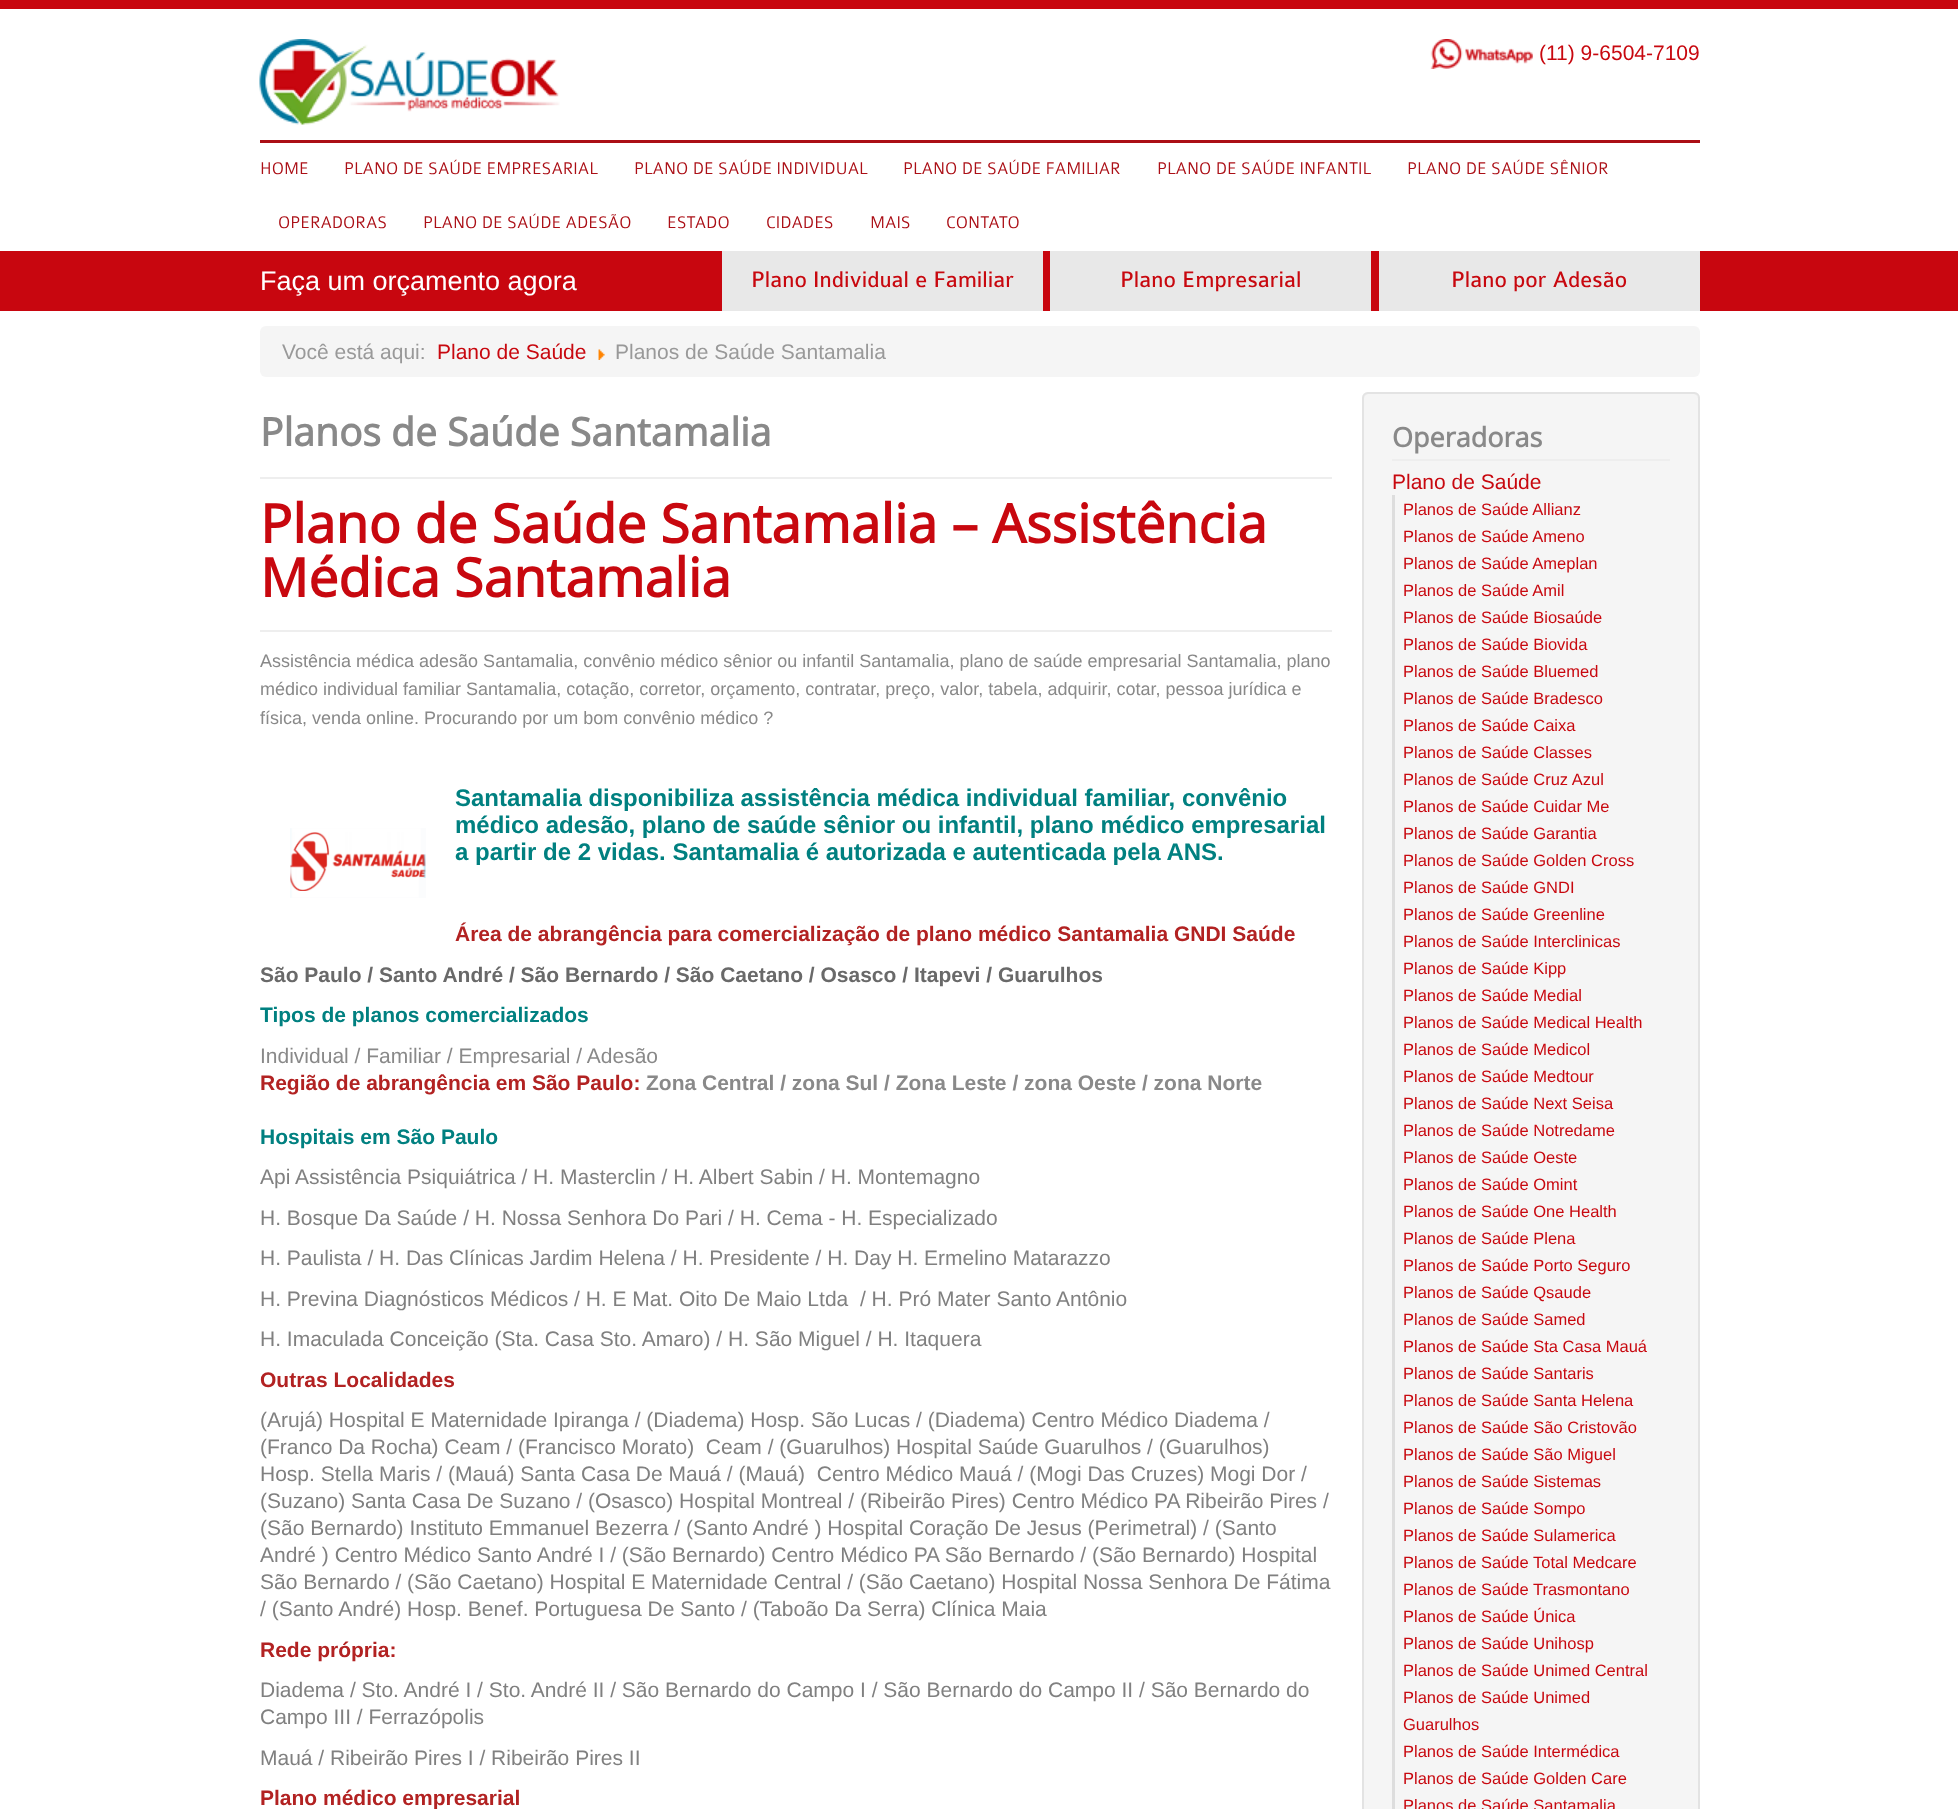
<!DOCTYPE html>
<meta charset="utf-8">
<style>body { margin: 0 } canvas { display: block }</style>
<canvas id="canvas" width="1958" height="1809"></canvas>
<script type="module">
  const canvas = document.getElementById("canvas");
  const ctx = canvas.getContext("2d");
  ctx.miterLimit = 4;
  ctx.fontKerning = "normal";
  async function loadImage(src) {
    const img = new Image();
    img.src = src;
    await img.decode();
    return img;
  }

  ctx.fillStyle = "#ffffff";
  ctx.fillRect(0, 0, 1958, 1809);
  ctx.fillStyle = "#c8060f";
  ctx.fillRect(0, 0, 1958, 9);
  ctx.drawImage(await loadImage("img1.png"), 259, 39, 301, 86);
  ctx.drawImage(await loadImage("img2.png"), 1430, 39, 103, 30);
  ctx.font = "21px Liberation Sans";
  ctx.fillStyle = "#c8080f";
  ctx.fillText("(11) 9-6504-7109", 1539, 60);
  ctx.fillStyle = "#ab0f16";
  ctx.fillRect(260, 140, 1440, 3);
  ctx.font = "300 18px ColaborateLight";
  ctx.fillText("HOME", 260, 174);
  ctx.fillText("PLANO DE SAÚDE EMPRESARIAL", 344, 174);
  ctx.fillText("PLANO DE SAÚDE INDIVIDUAL", 634, 174);
  ctx.fillText("PLANO DE SAÚDE FAMILIAR", 903, 174);
  ctx.fillText("PLANO DE SAÚDE INFANTIL", 1157, 174);
  ctx.fillText("PLANO DE SAÚDE SÊNIOR", 1407, 174);
  ctx.fillText("OPERADORAS", 278, 228);
  ctx.fillText("PLANO DE SAÚDE ADESÃO", 423, 228);
  ctx.fillText("ESTADO", 667, 228);
  ctx.fillText("CIDADES", 766, 228);
  ctx.fillText("MAIS", 870, 228);
  ctx.fillText("CONTATO", 946, 228);
  ctx.fillStyle = "#c8060f";
  ctx.fillRect(0, 251, 1958, 60);
  ctx.font = "27px Liberation Sans";
  ctx.fillStyle = "#ffffff";
  ctx.fillText("Faça um orçamento agora", 260, 290);
  ctx.fillStyle = "#e8e8e8";
  ctx.fillRect(722, 251, 321, 60);
  ctx.font = "24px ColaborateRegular";
  ctx.fillStyle = "#c8080f";
  ctx.fillText("Plano Individual e Familiar", 751, 287);
  ctx.fillStyle = "#e8e8e8";
  ctx.fillRect(1050, 251, 321, 60);
  ctx.fillStyle = "#c8080f";
  ctx.fillText("Plano Empresarial", 1120, 287);
  ctx.fillStyle = "#e8e8e8";
  ctx.fillRect(1379, 251, 321, 60);
  ctx.fillStyle = "#c8080f";
  ctx.fillText("Plano por Adesão", 1451, 287);
  ctx.fillStyle = "#f5f5f5";
  ctx.beginPath();
  ctx.roundRect(260, 326, 1440, 51, 6);
  ctx.fill();
  ctx.font = "21px Liberation Sans";
  ctx.fillStyle = "#999999";
  ctx.fillText("Você está aqui:", 282, 359);
  ctx.fillStyle = "#c8080f";
  ctx.fillText("Plano de Saúde", 437, 359);
  ctx.drawImage(await loadImage("img3.png"), 598, 349, 7, 11);
  ctx.fillStyle = "#999999";
  ctx.fillText("Planos de Saúde Santamalia", 615, 359);
  ctx.fillStyle = "#eeeeee";
  ctx.fillRect(260, 477, 1072, 2);
  ctx.font = "bold 39px Open Sans";
  ctx.fillStyle = "#898989";
  ctx.fillText("Planos de Saúde Santamalia", 260, 446);
  ctx.fillStyle = "#eeeeee";
  ctx.fillRect(260, 630, 1072, 2);
  ctx.font = "bold 53.6px Open Sans";
  ctx.fillStyle = "#c8080f";
  ctx.fillText("Plano de Saúde Santamalia – Assistência", 260, 543);
  ctx.fillText("Médica Santamalia", 260, 597);
  ctx.font = "18px Liberation Sans";
  ctx.fillStyle = "#898989";
  ctx.fillText("Assistência médica adesão Santamalia, convênio médico sênior ou infantil Santamalia, plano de saúde empresarial Santamalia, plano", 260, 667);
  ctx.fillText("médico individual familiar Santamalia, cotação, corretor, orçamento, contratar, preço, valor, tabela, adquirir, cotar, pessoa jurídica e", 260, 695);
  ctx.fillText("física, venda online. Procurando por um bom convênio médico ?", 260, 724);
  ctx.drawImage(await loadImage("img4.png"), 290, 828, 136, 70);
  ctx.font = "bold 24px Liberation Sans";
  ctx.fillStyle = "#008080";
  ctx.fillText("Santamalia disponibiliza assistência médica individual familiar, convênio", 455, 806);
  ctx.fillText("médico adesão, plano de saúde sênior ou infantil, plano médico empresarial", 455, 833);
  ctx.fillText("a partir de 2 vidas. Santamalia é autorizada e autenticada pela ANS.", 455, 860);
  ctx.font = "bold 21px Liberation Sans";
  ctx.fillStyle = "#b22222";
  ctx.fillText("Área de abrangência para comercialização de plano médico Santamalia GNDI Saúde", 455, 941);
  ctx.fillStyle = "#696969";
  ctx.fillText("São Paulo / Santo André / São Bernardo / São Caetano / Osasco / Itapevi / Guarulhos", 260, 982);
  ctx.fillStyle = "#008080";
  ctx.fillText("Tipos de planos comercializados", 260, 1022);
  ctx.font = "21px Liberation Sans";
  ctx.fillStyle = "#898989";
  ctx.fillText("Individual / Familiar / Empresarial / Adesão", 260, 1063);
  ctx.font = "bold 21px Liberation Sans";
  ctx.fillStyle = "#b22222";
  ctx.fillText("Região de abrangência em São Paulo:", 260, 1090);
  ctx.fillStyle = "#898989";
  ctx.fillText("Zona Central / zona Sul / Zona Leste / zona Oeste / zona Norte", 646, 1090);
  ctx.fillStyle = "#008080";
  ctx.fillText("Hospitais em São Paulo", 260, 1144);
  ctx.font = "21px Liberation Sans";
  ctx.fillStyle = "#808080";
  ctx.fillText("Api Assistência Psiquiátrica / H. Masterclin / H. Albert Sabin / H. Montemagno", 260, 1184);
  ctx.fillText("H. Bosque Da Saúde / H. Nossa Senhora Do Pari / H. Cema - H. Especializado", 260, 1225);
  ctx.fillText("H. Paulista / H. Das Clínicas Jardim Helena / H. Presidente / H. Day H. Ermelino Matarazzo", 260, 1265);
  ctx.fillText("H. Previna Diagnósticos Médicos / H. E Mat. Oito De Maio Ltda  / H. Pró Mater Santo Antônio", 260, 1306);
  ctx.fillText("H. Imaculada Conceição (Sta. Casa Sto. Amaro) / H. São Miguel / H. Itaquera", 260, 1346);
  ctx.font = "bold 21px Liberation Sans";
  ctx.fillStyle = "#b22222";
  ctx.fillText("Outras Localidades", 260, 1387);
  ctx.font = "21px Liberation Sans";
  ctx.fillStyle = "#808080";
  ctx.fillText("(Arujá) Hospital E Maternidade Ipiranga / (Diadema) Hosp. São Lucas / (Diadema) Centro Médico Diadema /", 260, 1427);
  ctx.fillText("(Franco Da Rocha) Ceam / (Francisco Morato)  Ceam / (Guarulhos) Hospital Saúde Guarulhos / (Guarulhos)", 260, 1454);
  ctx.fillText("Hosp. Stella Maris / (Mauá) Santa Casa De Mauá / (Mauá)  Centro Médico Mauá / (Mogi Das Cruzes) Mogi Dor /", 260, 1481);
  ctx.fillText("(Suzano) Santa Casa De Suzano / (Osasco) Hospital Montreal / (Ribeirão Pires) Centro Médico PA Ribeirão Pires /", 260, 1508);
  ctx.fillText("(São Bernardo) Instituto Emmanuel Bezerra / (Santo André ) Hospital Coração De Jesus (Perimetral) / (Santo", 260, 1535);
  ctx.fillText("André ) Centro Médico Santo André I / (São Bernardo) Centro Médico PA São Bernardo / (São Bernardo) Hospital", 260, 1562);
  ctx.fillText("São Bernardo / (São Caetano) Hospital E Maternidade Central / (São Caetano) Hospital Nossa Senhora De Fátima", 260, 1589);
  ctx.fillText("/ (Santo André) Hosp. Benef. Portuguesa De Santo / (Taboão Da Serra) Clínica Maia", 260, 1616);
  ctx.font = "bold 21px Liberation Sans";
  ctx.fillStyle = "#b22222";
  ctx.fillText("Rede própria:", 260, 1657);
  ctx.font = "21px Liberation Sans";
  ctx.fillStyle = "#808080";
  ctx.fillText("Diadema / Sto. André I / Sto. André II / São Bernardo do Campo I / São Bernardo do Campo II / São Bernardo do", 260, 1697);
  ctx.fillText("Campo III / Ferrazópolis", 260, 1724);
  ctx.fillText("Mauá / Ribeirão Pires I / Ribeirão Pires II", 260, 1765);
  ctx.font = "bold 21px Liberation Sans";
  ctx.fillStyle = "#b22222";
  ctx.fillText("Plano médico empresarial", 260, 1805);
  ctx.fillStyle = "#f5f5f5";
  ctx.beginPath();
  ctx.roundRect(1362, 392, 338, 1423, 6);
  ctx.fill();
  ctx.fillStyle = "#e9e9e9";
  ctx.beginPath();
  ctx.moveTo(1368, 394);
  ctx.lineTo(1694, 394);
  ctx.bezierCurveTo(1696, 394, 1698, 397, 1698, 399);
  ctx.bezierCurveTo(1698, 396, 1696, 393, 1693, 393);
  ctx.lineTo(1369, 393);
  ctx.bezierCurveTo(1366, 393, 1364, 396, 1364, 399);
  ctx.bezierCurveTo(1364, 397, 1366, 394, 1368, 394);
  ctx.closePath();
  ctx.fill();
  ctx.beginPath();
  ctx.roundRect(1363, 393, 336, 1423, 5);
  ctx.strokeStyle = "#e3e3e3";
  ctx.lineWidth = 2;
  ctx.stroke();
  ctx.fillStyle = "#eeeeee";
  ctx.fillRect(1392, 459, 278, 2);
  ctx.font = "bold 27px Open Sans";
  ctx.fillStyle = "#898989";
  ctx.fillText("Operadoras", 1392, 447);
  ctx.font = "21px Liberation Sans";
  ctx.fillStyle = "#c8080f";
  ctx.fillText("Plano de Saúde", 1392, 489);
  ctx.fillStyle = "#dddddd";
  ctx.fillRect(1392, 495, 3, 1314);
  ctx.font = "16.5px Liberation Sans";
  ctx.fillStyle = "#c8080f";
  ctx.fillText("Planos de Saúde Allianz", 1403, 515);
  ctx.fillText("Planos de Saúde Ameno", 1403, 542);
  ctx.fillText("Planos de Saúde Ameplan", 1403, 569);
  ctx.fillText("Planos de Saúde Amil", 1403, 596);
  ctx.fillText("Planos de Saúde Biosaúde", 1403, 623);
  ctx.fillText("Planos de Saúde Biovida", 1403, 650);
  ctx.fillText("Planos de Saúde Bluemed", 1403, 677);
  ctx.fillText("Planos de Saúde Bradesco", 1403, 704);
  ctx.fillText("Planos de Saúde Caixa", 1403, 731);
  ctx.fillText("Planos de Saúde Classes", 1403, 758);
  ctx.fillText("Planos de Saúde Cruz Azul", 1403, 785);
  ctx.fillText("Planos de Saúde Cuidar Me", 1403, 812);
  ctx.fillText("Planos de Saúde Garantia", 1403, 839);
  ctx.fillText("Planos de Saúde Golden Cross", 1403, 866);
  ctx.fillText("Planos de Saúde GNDI", 1403, 893);
  ctx.fillText("Planos de Saúde Greenline", 1403, 920);
  ctx.fillText("Planos de Saúde Interclinicas", 1403, 947);
  ctx.fillText("Planos de Saúde Kipp", 1403, 974);
  ctx.fillText("Planos de Saúde Medial", 1403, 1001);
  ctx.fillText("Planos de Saúde Medical Health", 1403, 1028);
  ctx.fillText("Planos de Saúde Medicol", 1403, 1055);
  ctx.fillText("Planos de Saúde Medtour", 1403, 1082);
  ctx.fillText("Planos de Saúde Next Seisa", 1403, 1109);
  ctx.fillText("Planos de Saúde Notredame", 1403, 1136);
  ctx.fillText("Planos de Saúde Oeste", 1403, 1163);
  ctx.fillText("Planos de Saúde Omint", 1403, 1190);
  ctx.fillText("Planos de Saúde One Health", 1403, 1217);
  ctx.fillText("Planos de Saúde Plena", 1403, 1244);
  ctx.fillText("Planos de Saúde Porto Seguro", 1403, 1271);
  ctx.fillText("Planos de Saúde Qsaude", 1403, 1298);
  ctx.fillText("Planos de Saúde Samed", 1403, 1325);
  ctx.fillText("Planos de Saúde Sta Casa Mauá", 1403, 1352);
  ctx.fillText("Planos de Saúde Santaris", 1403, 1379);
  ctx.fillText("Planos de Saúde Santa Helena", 1403, 1406);
  ctx.fillText("Planos de Saúde São Cristovão", 1403, 1433);
  ctx.fillText("Planos de Saúde São Miguel", 1403, 1460);
  ctx.fillText("Planos de Saúde Sistemas", 1403, 1487);
  ctx.fillText("Planos de Saúde Sompo", 1403, 1514);
  ctx.fillText("Planos de Saúde Sulamerica", 1403, 1541);
  ctx.fillText("Planos de Saúde Total Medcare", 1403, 1568);
  ctx.fillText("Planos de Saúde Trasmontano", 1403, 1595);
  ctx.fillText("Planos de Saúde Única", 1403, 1622);
  ctx.fillText("Planos de Saúde Unihosp", 1403, 1649);
  ctx.fillText("Planos de Saúde Unimed Central", 1403, 1676);
  ctx.fillText("Planos de Saúde Unimed", 1403, 1703);
  ctx.fillText("Guarulhos", 1403, 1730);
  ctx.fillText("Planos de Saúde Intermédica", 1403, 1757);
  ctx.fillText("Planos de Saúde Golden Care", 1403, 1784);
  ctx.fillText("Planos de Saúde Santamalia", 1403, 1811);
</script>
